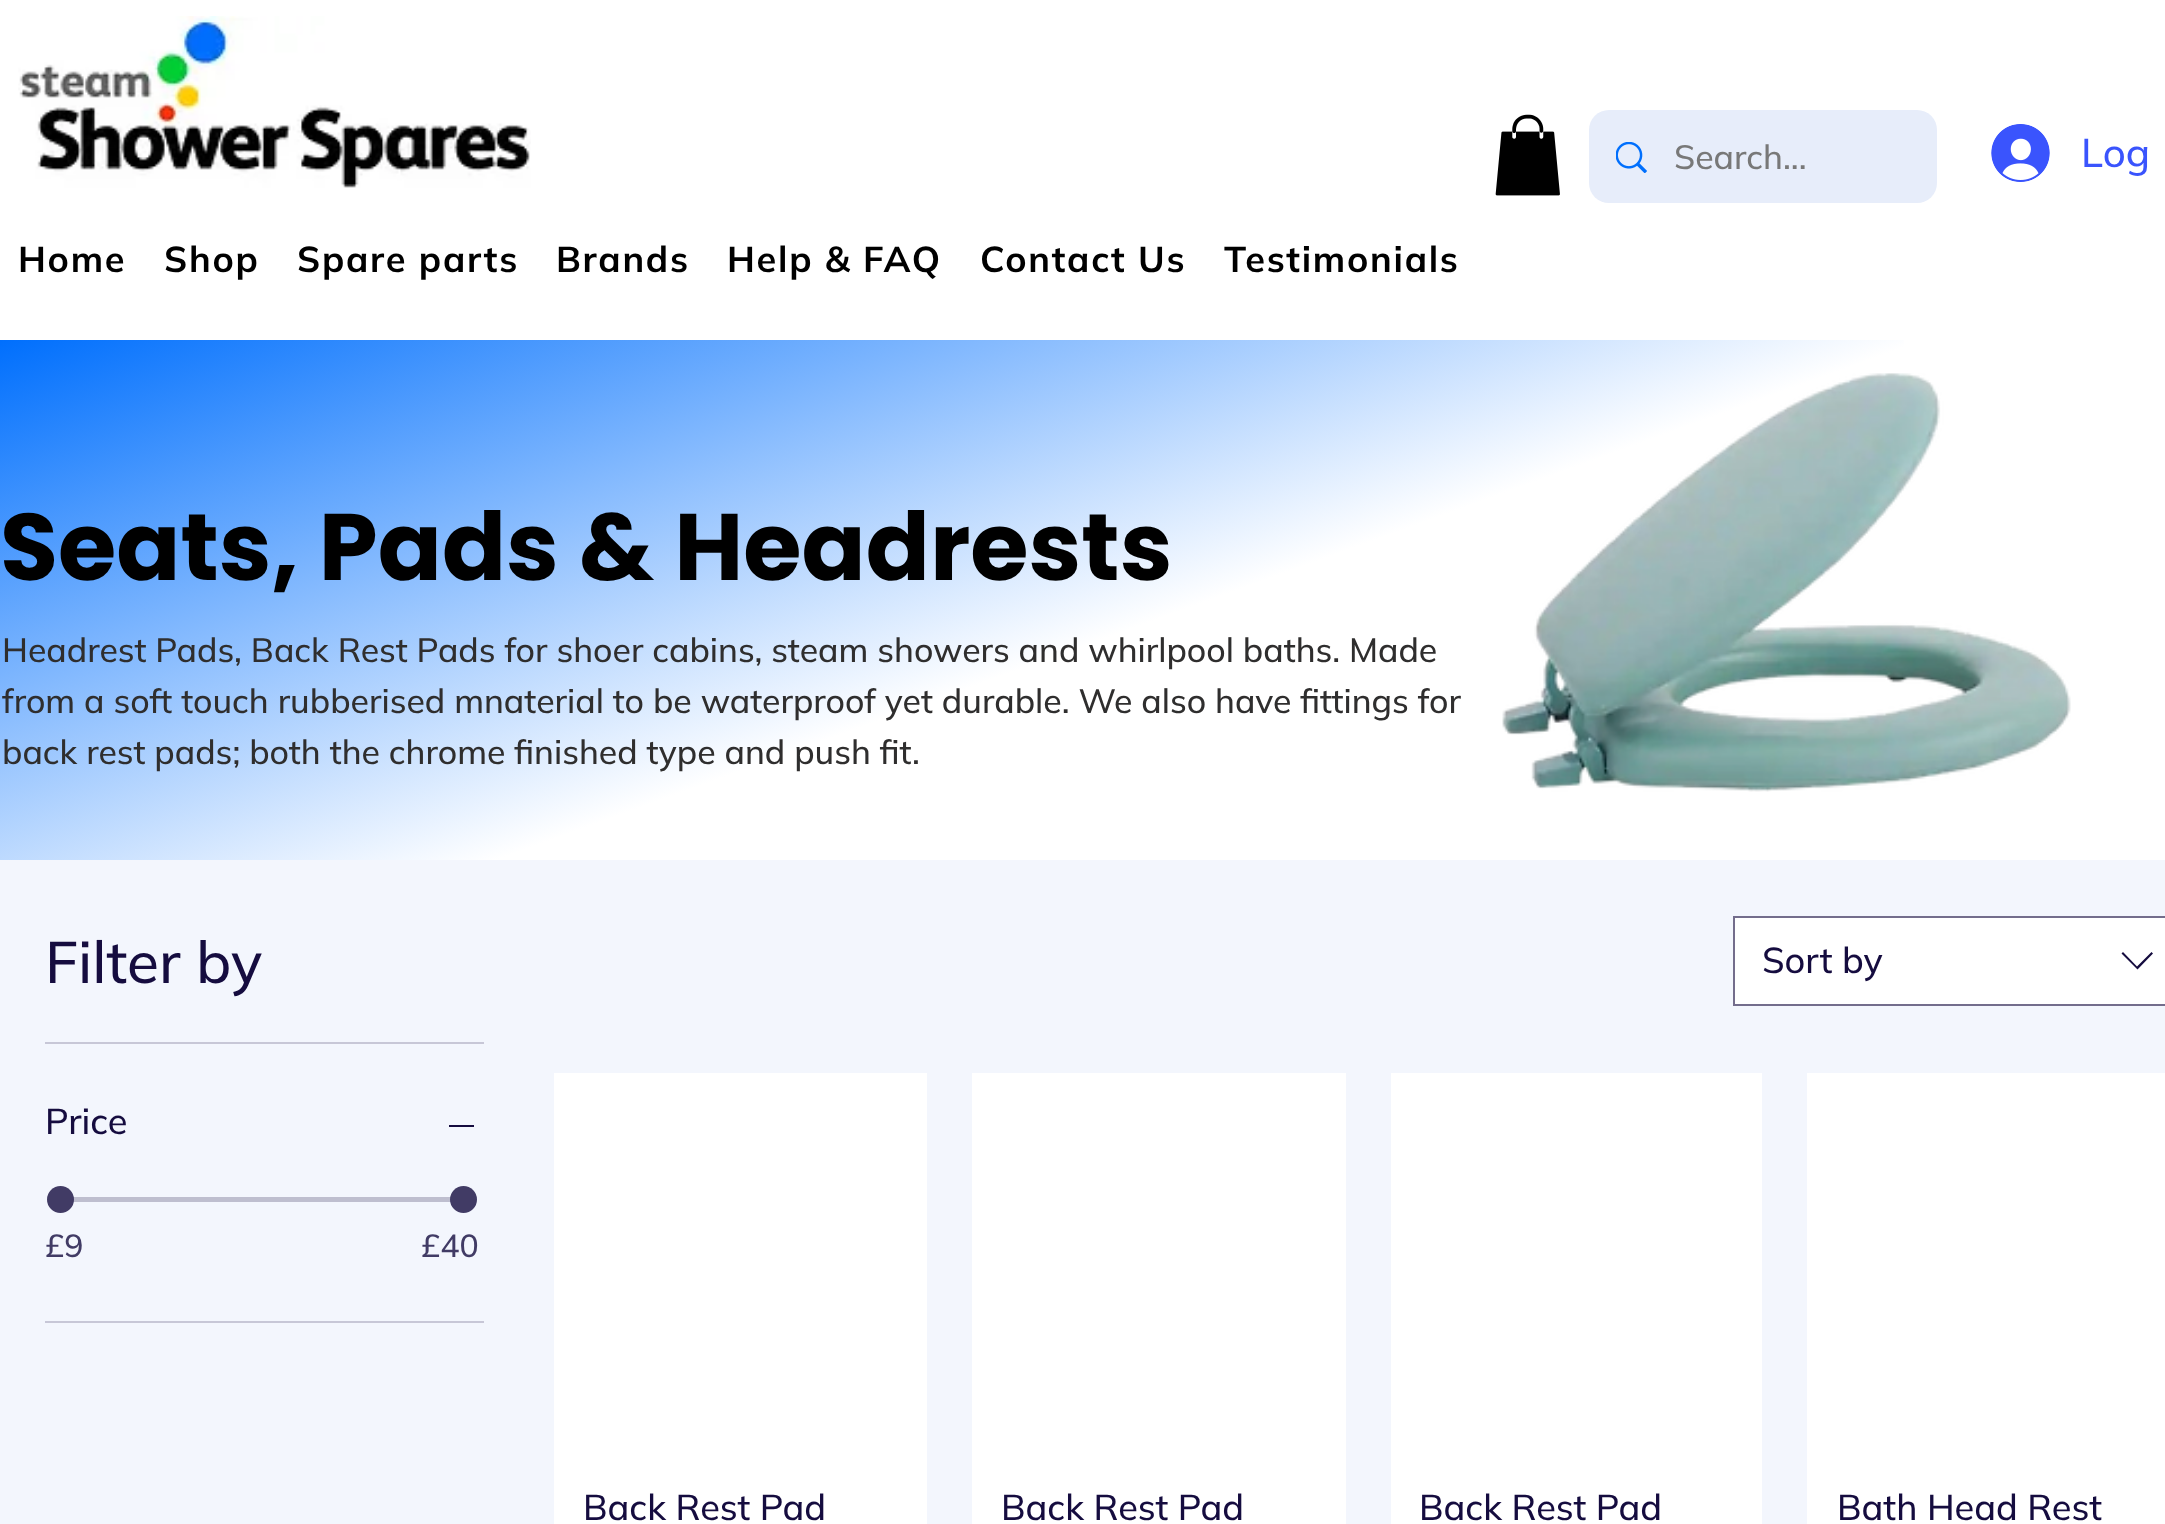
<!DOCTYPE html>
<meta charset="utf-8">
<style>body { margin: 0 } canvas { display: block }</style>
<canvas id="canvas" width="2165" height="1524"></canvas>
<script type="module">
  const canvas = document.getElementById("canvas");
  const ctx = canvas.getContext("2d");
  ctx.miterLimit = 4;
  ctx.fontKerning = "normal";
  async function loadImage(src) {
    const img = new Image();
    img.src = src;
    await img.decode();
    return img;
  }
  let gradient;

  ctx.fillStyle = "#ffffff";
  ctx.fillRect(0, 0, 2165, 1524);
  ctx.drawImage(await loadImage("img1.png"), 1495, 114, 65, 82);
  ctx.fillStyle = "#e7edfa";
  ctx.beginPath();
  ctx.roundRect(1589, 110, 348, 93, 20);
  ctx.fill();
  ctx.drawImage(await loadImage("img2.png"), 1616, 142, 31, 31);
  ctx.font = "500 33.75px Mulish";
  ctx.fillStyle = "#787878";
  ctx.fillText("Search...", 1674, 169);
  ctx.drawImage(await loadImage("img3.png"), 1991, 124, 59, 58);
  ctx.font = "500 40px Mulish";
  ctx.fillStyle = "#3a54fd";
  ctx.fillText("Log", 2081, 167);
  ctx.drawImage(await loadImage("img4.png"), 18, 16, 513, 172);
  ctx.letterSpacing = "1.75px";
  ctx.font = "bold 36px Mulish";
  ctx.fillStyle = "#000000";
  ctx.fillText("Home", 18, 272);
  ctx.fillText("Shop", 164, 272);
  ctx.fillText("Spare parts", 297, 272);
  ctx.fillText("Brands", 556, 272);
  ctx.fillText("Help & FAQ", 727, 272);
  ctx.fillText("Contact Us", 980, 272);
  ctx.fillText("Testimonials", 1224, 272);
  gradient = ctx.createLinearGradient(890, 16, 1315, 1183);
  gradient.addColorStop(0, "#006ffd");
  gradient.addColorStop(0.53, "#ffffff");
  ctx.fillStyle = gradient;
  ctx.fillRect(0, 340, 1904, 520);
  ctx.letterSpacing = "0px";
  ctx.font = "bold 94.5px Poppins";
  ctx.fillStyle = "#000000";
  ctx.fillText("Seats, Pads & Headrests", 0, 580);
  ctx.drawImage(await loadImage("img5.png"), 1502, 373, 569, 419);
  ctx.font = "500 33.75px Mulish";
  ctx.fillStyle = "#2f2e2e";
  ctx.fillText("Headrest Pads, Back Rest Pads for shoer cabins, steam showers and whirlpool baths. Made", 2, 662);
  ctx.fillText("from a soft touch rubberised mnaterial to be waterproof yet durable. We also have fittings for", 2, 713);
  ctx.fillText("back rest pads; both the chrome finished type and push fit.", 2, 764);
  ctx.fillStyle = "#f3f6fd";
  ctx.fillRect(0, 860, 2165, 664);
  ctx.fillStyle = "#c7c7d7";
  ctx.fillRect(45, 1042, 439, 2);
  ctx.font = "500 58.5px Mulish";
  ctx.fillStyle = "#150c3f";
  ctx.fillText("Filter by", 45, 983);
  ctx.fillStyle = "#c7c7d7";
  ctx.fillRect(45, 1321, 439, 2);
  ctx.font = "500 36px Mulish";
  ctx.fillStyle = "#150c3f";
  ctx.fillText("Price", 45, 1134);
  ctx.fillRect(449, 1125, 25, 2);
  ctx.fillStyle = "#bebecf";
  ctx.fillRect(73, 1197, 378, 5);
  ctx.fillStyle = "#413b65";
  ctx.beginPath();
  ctx.arc(60.5, 1199.5, 13.5, 0, Math.PI * 2);
  ctx.fill();
  ctx.beginPath();
  ctx.arc(463.5, 1199.5, 13.5, 0, Math.PI * 2);
  ctx.fill();
  ctx.font = "500 32px Mulish";
  ctx.fillText("£9", 45, 1257);
  ctx.fillText("£40", 421, 1257);
  ctx.fillStyle = "#ffffff";
  ctx.beginPath();
  ctx.rect(1734, 917, 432, 88);
  ctx.fill();
  ctx.strokeStyle = "#736d8c";
  ctx.lineWidth = 2;
  ctx.stroke();
  ctx.font = "500 36px Mulish";
  ctx.fillStyle = "#150c3f";
  ctx.fillText("Sort by", 1762, 973);
  ctx.beginPath();
  ctx.moveTo(2151.5, 952);
  ctx.lineTo(2153, 953.5);
  ctx.lineTo(2137.5, 969.5);
  ctx.lineTo(2121.5, 953.5);
  ctx.lineTo(2123, 952);
  ctx.lineTo(2137, 966.5);
  ctx.closePath();
  ctx.fill("evenodd");
  ctx.fillStyle = "#ffffff";
  ctx.fillRect(554, 1073, 373, 451);
  ctx.fillStyle = "#150c3f";
  ctx.fillText("Back Rest Pad", 583, 1520);
  ctx.fillStyle = "#ffffff";
  ctx.fillRect(972, 1073, 374, 451);
  ctx.fillStyle = "#150c3f";
  ctx.fillText("Back Rest Pad", 1001, 1520);
  ctx.fillStyle = "#ffffff";
  ctx.fillRect(1391, 1073, 371, 451);
  ctx.fillStyle = "#150c3f";
  ctx.fillText("Back Rest Pad", 1419, 1520);
  ctx.fillStyle = "#ffffff";
  ctx.fillRect(1807, 1073, 358, 451);
  ctx.fillStyle = "#150c3f";
  ctx.fillText("Bath Head Rest", 1837, 1520);
</script>
